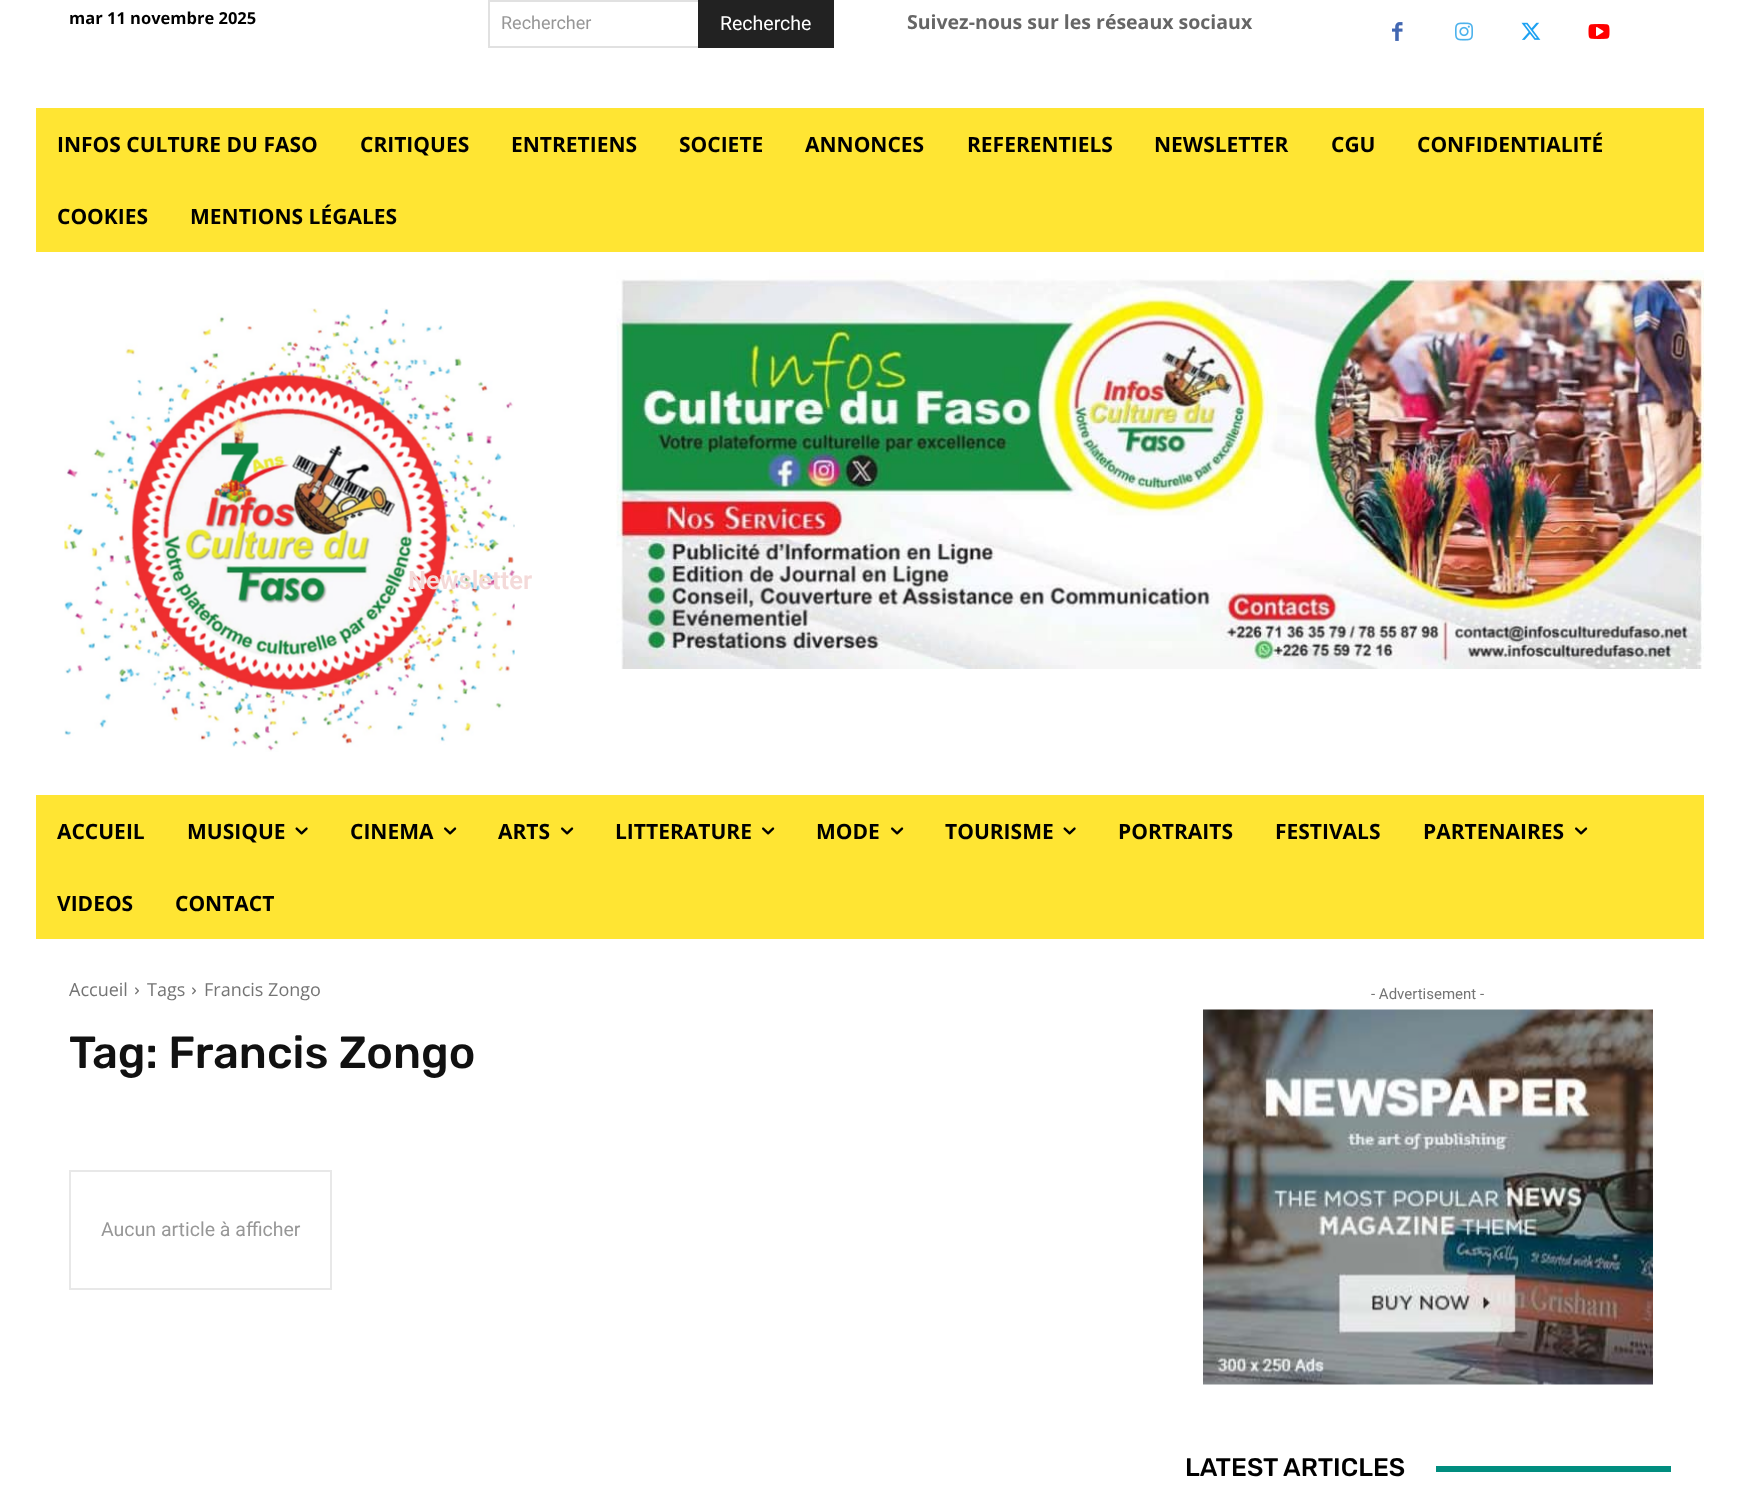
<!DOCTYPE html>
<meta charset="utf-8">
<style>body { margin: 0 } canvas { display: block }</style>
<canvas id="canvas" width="1739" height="1509"></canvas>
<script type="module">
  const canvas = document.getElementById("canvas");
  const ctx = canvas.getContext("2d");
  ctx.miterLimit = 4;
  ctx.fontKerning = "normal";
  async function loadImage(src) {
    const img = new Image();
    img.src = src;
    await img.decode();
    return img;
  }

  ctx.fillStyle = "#ffffff";
  ctx.fillRect(0, 0, 1739, 1509);
  ctx.font = "bold 16.5px Open Sans";
  ctx.fillStyle = "#000000";
  ctx.fillText("mar 11 novembre 2025", 69, 24);
  ctx.strokeStyle = "#e1e1e1";
  ctx.lineWidth = 2;
  ctx.strokeRect(489, 1, 344, 46);
  ctx.font = "18px Roboto";
  ctx.fillStyle = "#979797";
  ctx.fillText("Rechercher", 501, 29);
  ctx.fillStyle = "#222222";
  ctx.fillRect(698, 0, 136, 48);
  ctx.font = "19.5px Roboto";
  ctx.fillStyle = "#ffffff";
  ctx.fillText("Recherche", 720, 30);
  ctx.font = "bold 19.5px Open Sans";
  ctx.fillStyle = "#666666";
  ctx.fillText("Suivez-nous sur les réseaux sociaux", 907, 29);
  ctx.drawImage(await loadImage("img1.png"), 1392, 22, 11, 19);
  ctx.drawImage(await loadImage("img2.png"), 1455, 22, 18, 19);
  ctx.drawImage(await loadImage("img3.png"), 1521, 22, 20, 18);
  ctx.drawImage(await loadImage("img4.png"), 1588, 24, 22, 15);
  ctx.fillStyle = "#ffe533";
  ctx.fillRect(36, 108, 1668, 144);
  ctx.font = "bold 21px Open Sans";
  ctx.fillStyle = "#000000";
  ctx.fillText("INFOS CULTURE DU FASO", 57, 152);
  ctx.fillText("CRITIQUES", 360, 152);
  ctx.fillText("ENTRETIENS", 511, 152);
  ctx.fillText("SOCIETE", 679, 152);
  ctx.fillText("ANNONCES", 805, 152);
  ctx.fillText("REFERENTIELS", 967, 152);
  ctx.fillText("NEWSLETTER", 1154, 152);
  ctx.fillText("CGU", 1331, 152);
  ctx.fillText("CONFIDENTIALITÉ", 1417, 152);
  ctx.fillText("COOKIES", 57, 224);
  ctx.fillText("MENTIONS LÉGALES", 190, 224);
  ctx.drawImage(await loadImage("img5.png"), 64, 308, 451, 444);
  ctx.drawImage(await loadImage("img6.png"), 616, 270, 1088, 399);
  ctx.fillStyle = "#ffe533";
  ctx.fillRect(36, 795, 1668, 144);
  ctx.fillStyle = "#000000";
  ctx.fillText("ACCUEIL", 57, 839);
  ctx.fillText("MUSIQUE", 187, 839);
  ctx.drawImage(await loadImage("img7.png"), 295, 827, 13, 8);
  ctx.fillText("CINEMA", 350, 839);
  ctx.drawImage(await loadImage("img8.png"), 444, 827, 13, 8);
  ctx.fillText("ARTS", 498, 839);
  ctx.drawImage(await loadImage("img8.png"), 561, 827, 13, 8);
  ctx.fillText("LITTERATURE", 615, 839);
  ctx.drawImage(await loadImage("img8.png"), 762, 827, 13, 8);
  ctx.fillText("MODE", 816, 839);
  ctx.drawImage(await loadImage("img8.png"), 891, 827, 13, 8);
  ctx.fillText("TOURISME", 945, 839);
  ctx.drawImage(await loadImage("img7.png"), 1063, 827, 13, 8);
  ctx.fillText("PORTRAITS", 1118, 839);
  ctx.fillText("FESTIVALS", 1275, 839);
  ctx.fillText("PARTENAIRES", 1423, 839);
  ctx.drawImage(await loadImage("img8.png"), 1575, 827, 13, 8);
  ctx.fillText("VIDEOS", 57, 911);
  ctx.fillText("CONTACT", 175, 911);
  ctx.font = "18px Open Sans";
  ctx.fillStyle = "#747474";
  ctx.fillText("Accueil", 69, 996);
  ctx.drawImage(await loadImage("img9.png"), 135, 987, 4, 8);
  ctx.fillText("Tags", 147, 996);
  ctx.drawImage(await loadImage("img9.png"), 192, 987, 4, 8);
  ctx.fillText("Francis Zongo", 204, 996);
  ctx.font = "500 45px Rubik";
  ctx.fillStyle = "#111111";
  ctx.fillText("Tag: Francis Zongo", 69, 1068);
  ctx.strokeStyle = "#e8e8e8";
  ctx.strokeRect(70, 1171, 261, 118);
  ctx.font = "19.5px Roboto";
  ctx.fillStyle = "#979797";
  ctx.fillText("Aucun article à afficher", 101, 1236);
  ctx.font = "15px Roboto";
  ctx.fillStyle = "#747474";
  ctx.fillText("- Advertisement -", 1371, 999);
  ctx.drawImage(await loadImage("img10.png"), 1203, 1009, 450, 376);
  ctx.font = "500 25.5px Rubik";
  ctx.fillStyle = "#000000";
  ctx.fillText("LATEST ARTICLES", 1185, 1476);
  ctx.fillStyle = "#008d7f";
  ctx.fillRect(1436, 1466, 235, 6);
  ctx.font = "600 25.5px Roboto";
  ctx.fillStyle = "#f4dad9";
  ctx.fillText("Newsletter", 408, 589);
</script>
